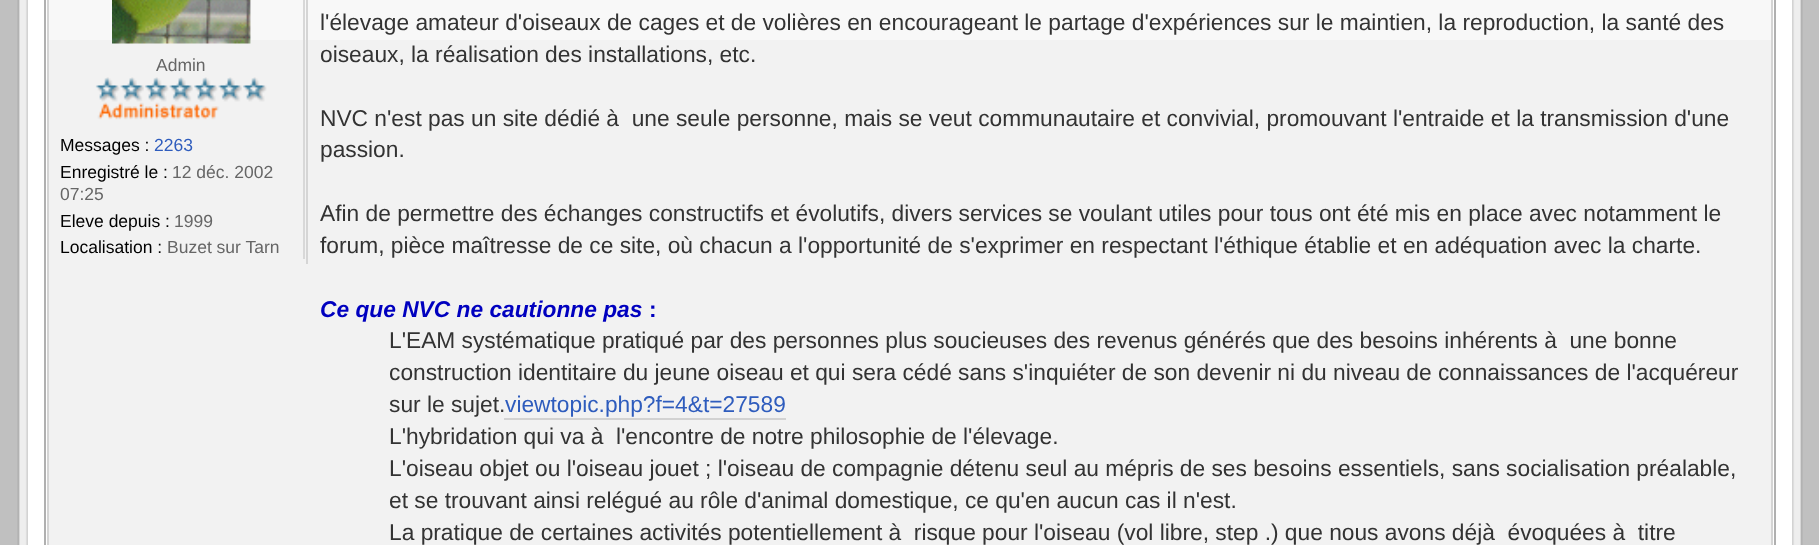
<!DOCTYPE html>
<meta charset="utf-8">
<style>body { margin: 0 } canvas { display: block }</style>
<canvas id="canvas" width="1819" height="545"></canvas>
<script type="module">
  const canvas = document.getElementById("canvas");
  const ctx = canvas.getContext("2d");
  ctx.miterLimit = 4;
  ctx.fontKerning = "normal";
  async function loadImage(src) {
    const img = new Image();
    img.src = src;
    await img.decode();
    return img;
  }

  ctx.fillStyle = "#c0c0c0";
  ctx.fillRect(0, 0, 1819, 545);
  ctx.drawImage(await loadImage("img1.png"), 17, 0, 11, 545);
  ctx.drawImage(await loadImage("img2.png"), 1792, 0, 11, 545);
  ctx.fillStyle = "#ffffff";
  ctx.fillRect(28, 0, 1764, 545);
  ctx.strokeStyle = "#b0b0b0";
  ctx.lineWidth = 2;
  ctx.strokeRect(45, -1, 1730, 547);
  ctx.fillStyle = "#f2f2f2";
  ctx.fillRect(49, 40, 1722, 505);
  ctx.fillStyle = "#f8f8f8";
  ctx.fillRect(49, 0, 1722, 40);
  ctx.strokeStyle = "#d4d4d4";
  ctx.strokeRect(48, -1, 1724, 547);
  ctx.fillStyle = "#d5d5d5";
  ctx.fillRect(306, 0, 2, 264);
  ctx.fillStyle = "#d8d8d8";
  ctx.fillRect(303, 0, 2, 259);
  ctx.drawImage(await loadImage("img3.png"), 112, 0, 139, 44);
  ctx.font = "17.5px Liberation Sans";
  ctx.fillStyle = "#666666";
  ctx.fillText("Admin", 156, 71);
  ctx.drawImage(await loadImage("img4.png"), 95, 77, 172, 43);
  ctx.fillStyle = "#000000";
  ctx.fillText("Messages :", 60, 151);
  ctx.fillStyle = "#2e5cbd";
  ctx.fillText("2263", 154, 151);
  ctx.fillStyle = "#000000";
  ctx.fillText("Enregistré le :", 60, 178);
  ctx.fillStyle = "#666666";
  ctx.fillText("12 déc. 2002", 172, 178);
  ctx.fillText("07:25", 60, 200);
  ctx.fillStyle = "#000000";
  ctx.fillText("Eleve depuis :", 60, 227);
  ctx.fillStyle = "#666666";
  ctx.fillText("1999", 174, 227);
  ctx.fillStyle = "#000000";
  ctx.fillText("Localisation :", 60, 253);
  ctx.fillStyle = "#666666";
  ctx.fillText("Buzet sur Tarn", 167, 253);
  ctx.font = "22.75px Liberation Sans";
  ctx.fillStyle = "#333333";
  ctx.fillText("l'élevage amateur d'oiseaux de cages et de volières en encourageant le partage d'expériences sur le maintien, la reproduction, la santé des", 320, 30);
  ctx.fillText("oiseaux, la réalisation des installations, etc.", 320, 62);
  ctx.fillText("NVC n'est pas un site dédié à  une seule personne, mais se veut communautaire et convivial, promouvant l'entraide et la transmission d'une", 320, 126);
  ctx.fillText("passion.", 320, 157);
  ctx.fillText("Afin de permettre des échanges constructifs et évolutifs, divers services se voulant utiles pour tous ont été mis en place avec notamment le", 320, 221);
  ctx.fillText("forum, pièce maîtresse de ce site, où chacun a l'opportunité de s'exprimer en respectant l'éthique établie et en adéquation avec la charte.", 320, 253);
  ctx.font = "italic bold 22.75px Liberation Sans";
  ctx.fillStyle = "#0000bf";
  ctx.fillText("Ce que NVC ne cautionne pas", 320, 317);
  ctx.font = "bold 22.75px Liberation Sans";
  ctx.fillText(":", 649, 317);
  ctx.font = "22.75px Liberation Sans";
  ctx.fillStyle = "#333333";
  ctx.fillText("L'EAM systématique pratiqué par des personnes plus soucieuses des revenus générés que des besoins inhérents à  une bonne", 389, 348);
  ctx.fillText("construction identitaire du jeune oiseau et qui sera cédé sans s'inquiéter de son devenir ni du niveau de connaissances de l'acquéreur", 389, 380);
  ctx.fillText("sur le sujet.", 389, 412);
  ctx.fillStyle = "#2e5cbd";
  ctx.fillText("viewtopic.php?f=4&t=27589", 505, 412);
  ctx.fillStyle = "#d2d2d2";
  ctx.fillRect(504, 418, 282, 2);
  ctx.fillStyle = "#333333";
  ctx.fillText("L'hybridation qui va à  l'encontre de notre philosophie de l'élevage.", 389, 444);
  ctx.fillText("L'oiseau objet ou l'oiseau jouet ; l'oiseau de compagnie détenu seul au mépris de ses besoins essentiels, sans socialisation préalable,", 389, 476);
  ctx.fillText("et se trouvant ainsi relégué au rôle d'animal domestique, ce qu'en aucun cas il n'est.", 389, 508);
  ctx.fillText("La pratique de certaines activités potentiellement à  risque pour l'oiseau (vol libre, step .) que nous avons déjà  évoquées à  titre", 389, 540);
</script>
